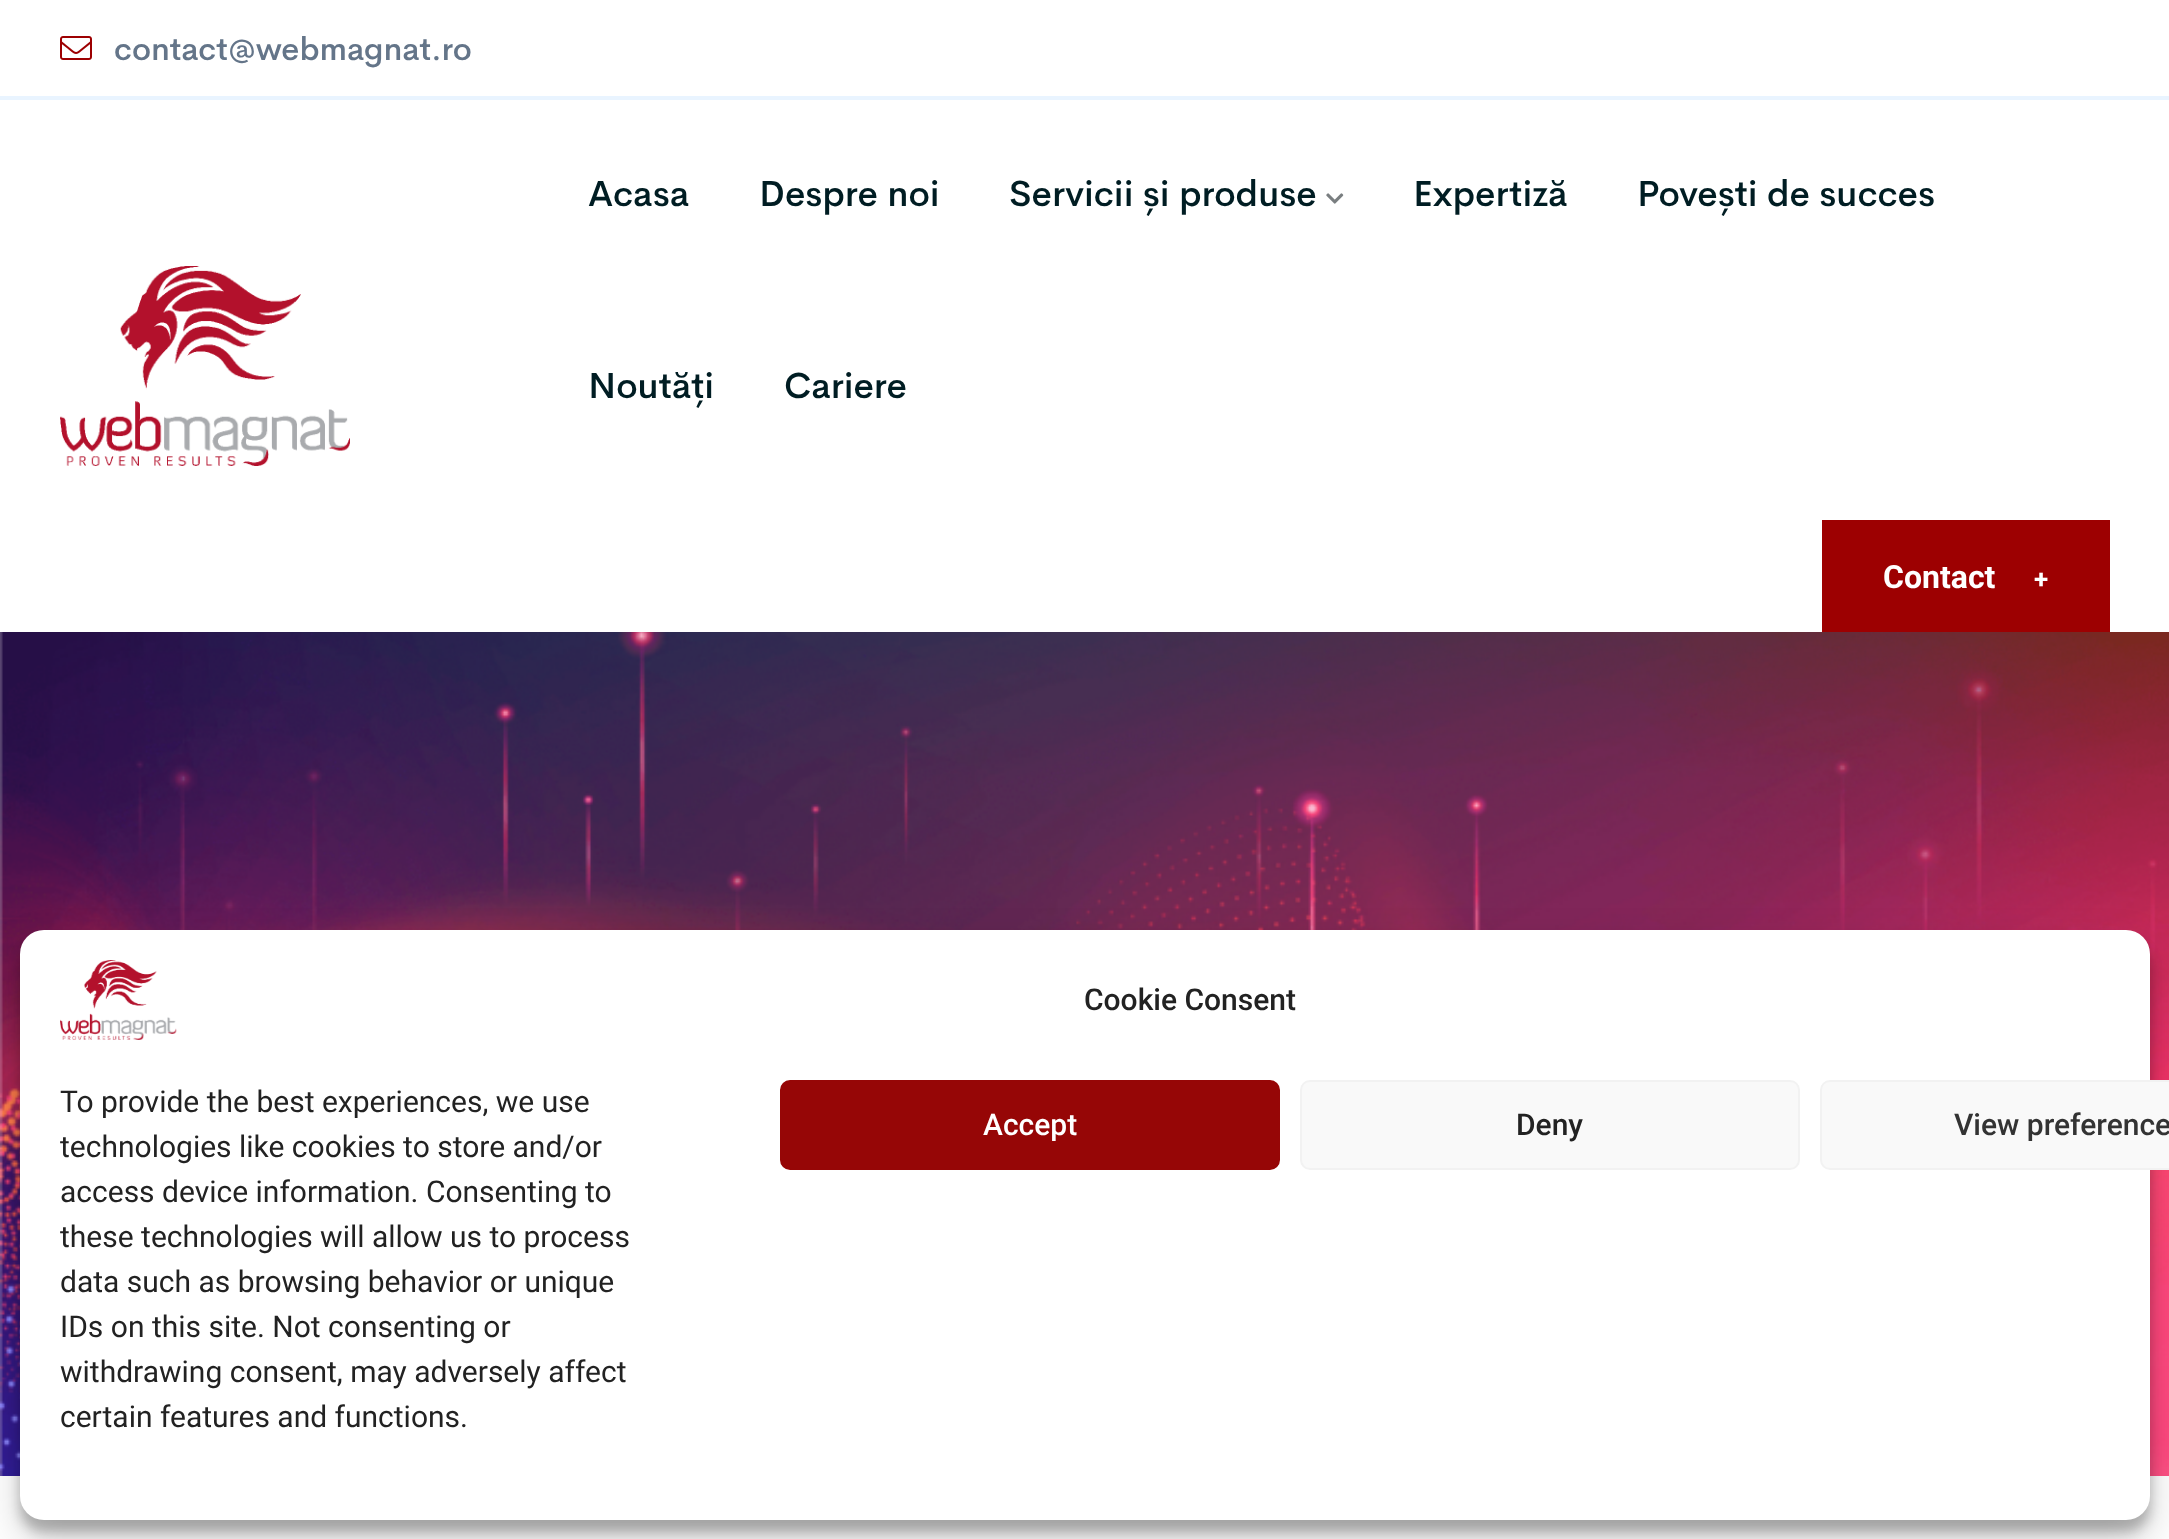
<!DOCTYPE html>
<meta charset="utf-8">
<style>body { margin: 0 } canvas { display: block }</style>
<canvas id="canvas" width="2169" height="1539"></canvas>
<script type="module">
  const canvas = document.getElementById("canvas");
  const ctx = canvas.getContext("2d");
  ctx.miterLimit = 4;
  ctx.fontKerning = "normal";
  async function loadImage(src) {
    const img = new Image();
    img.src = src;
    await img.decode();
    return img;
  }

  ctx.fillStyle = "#ffffff";
  ctx.fillRect(0, 0, 2169, 1539);
  ctx.fillStyle = "#e9f4ff";
  ctx.fillRect(0, 96, 2169, 4);
  ctx.drawImage(await loadImage("img1.png"), 60, 36, 32, 24);
  ctx.font = "500 32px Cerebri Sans";
  ctx.fillStyle = "#647589";
  ctx.fillText("contact@webmagnat.ro", 114, 60);
  ctx.drawImage(await loadImage("img2.png"), 60, 266, 290, 200);
  ctx.font = "500 36px Cerebri Sans";
  ctx.fillStyle = "#001d23";
  ctx.fillText("Acasa", 588, 206);
  ctx.fillText("Despre noi", 759, 206);
  ctx.fillText("Servicii și produse", 1009, 206);
  ctx.drawImage(await loadImage("img3.png"), 1326, 193, 18, 11);
  ctx.fillText("Expertiză", 1413, 206);
  ctx.fillText("Povești de succes", 1637, 206);
  ctx.fillText("Noutăți", 588, 398);
  ctx.fillText("Cariere", 784, 398);
  ctx.fillStyle = "#9d0001";
  ctx.fillRect(1822, 520, 288, 112);
  ctx.font = "bold 32px Roboto";
  ctx.fillStyle = "#ffffff";
  ctx.fillText("Contact", 1883, 588);
  ctx.font = "bold 26px Roboto";
  ctx.fillText("+", 2034, 588);
  ctx.drawImage(await loadImage("img4.png"), 0, 632, 2169, 844);
  ctx.fillStyle = "rgba(0, 0, 0, 0.23)";
  ctx.filter = "blur(6px)";
  ctx.beginPath();
  ctx.roundRect(20, 942, 2130, 590, 24);
  ctx.fill();
  ctx.filter = "none";
  ctx.fillStyle = "rgba(0, 0, 0, 0.19)";
  ctx.filter = "blur(20px)";
  ctx.beginPath();
  ctx.roundRect(20, 950, 2130, 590, 24);
  ctx.fill();
  ctx.filter = "none";
  ctx.fillStyle = "#ffffff";
  ctx.beginPath();
  ctx.roundRect(20, 930, 2130, 590, 24);
  ctx.fill();
  ctx.drawImage(await loadImage("img5.png"), 60, 960, 117, 80);
  ctx.font = "500 30px Roboto";
  ctx.fillStyle = "#222222";
  ctx.fillText("Cookie Consent", 1084, 1010);
  ctx.font = "30px Roboto";
  ctx.fillText("To provide the best experiences, we use", 60, 1112);
  ctx.fillText("technologies like cookies to store and/or", 60, 1157);
  ctx.fillText("access device information. Consenting to", 60, 1202);
  ctx.fillText("these technologies will allow us to process", 60, 1247);
  ctx.fillText("data such as browsing behavior or unique", 60, 1292);
  ctx.fillText("IDs on this site. Not consenting or", 60, 1337);
  ctx.fillText("withdrawing consent, may adversely affect", 60, 1382);
  ctx.fillText("certain features and functions.", 60, 1427);
  ctx.fillStyle = "#960606";
  ctx.beginPath();
  ctx.roundRect(781, 1081, 498, 88, 9);
  ctx.fill();
  ctx.strokeStyle = "#960606";
  ctx.lineWidth = 2;
  ctx.stroke();
  ctx.font = "500 30px Roboto";
  ctx.fillStyle = "#ffffff";
  ctx.fillText("Accept", 983, 1135);
  ctx.fillStyle = "#f9f9f9";
  ctx.beginPath();
  ctx.roundRect(1301, 1081, 498, 88, 9);
  ctx.fill();
  ctx.strokeStyle = "#f2f2f2";
  ctx.stroke();
  ctx.fillStyle = "#222222";
  ctx.fillText("Deny", 1516, 1135);
  ctx.fillStyle = "#f9f9f9";
  ctx.beginPath();
  ctx.roundRect(1821, 1081, 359, 88, 9);
  ctx.fill();
  ctx.stroke();
  ctx.fillStyle = "#333333";
  ctx.fillText("View preference", 1954, 1135);
</script>
